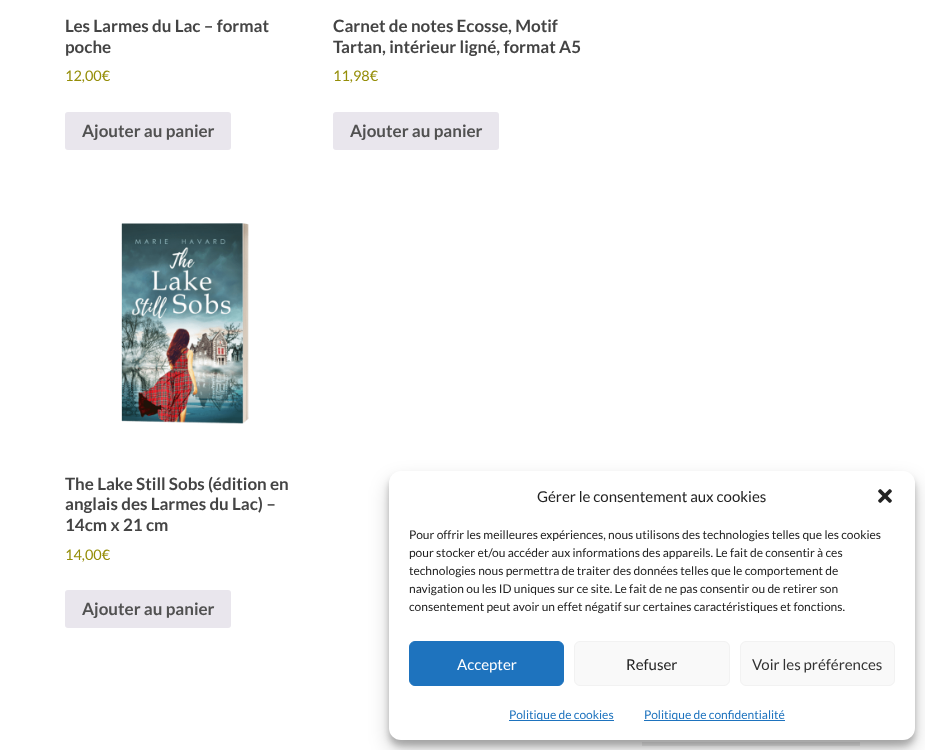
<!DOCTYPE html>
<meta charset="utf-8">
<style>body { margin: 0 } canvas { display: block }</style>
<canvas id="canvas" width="925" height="750"></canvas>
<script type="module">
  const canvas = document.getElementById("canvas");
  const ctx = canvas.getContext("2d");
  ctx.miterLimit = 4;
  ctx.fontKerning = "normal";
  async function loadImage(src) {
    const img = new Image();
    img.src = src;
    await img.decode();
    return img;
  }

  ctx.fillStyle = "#ffffff";
  ctx.fillRect(0, 0, 925, 750);
  ctx.font = "bold 17px Lato";
  ctx.fillStyle = "#444444";
  ctx.fillText("Les Larmes du Lac – format", 65, 32);
  ctx.fillText("poche", 65, 53);
  ctx.font = "14.5px Lato";
  ctx.fillStyle = "#958e09";
  ctx.fillText("12,00€", 65, 81);
  ctx.fillStyle = "#e9e6ed";
  ctx.beginPath();
  ctx.roundRect(65, 112, 166, 38, 3);
  ctx.fill();
  ctx.font = "bold 17px Lato";
  ctx.fillStyle = "#515151";
  ctx.fillText("Ajouter au panier", 82, 137);
  ctx.fillStyle = "#444444";
  ctx.fillText("Carnet de notes Ecosse, Motif", 333, 32);
  ctx.fillText("Tartan, intérieur ligné, format A5", 333, 53);
  ctx.font = "14.5px Lato";
  ctx.fillStyle = "#958e09";
  ctx.fillText("11,98€", 333, 81);
  ctx.fillStyle = "#e9e6ed";
  ctx.beginPath();
  ctx.roundRect(333, 112, 166, 38, 3);
  ctx.fill();
  ctx.font = "bold 17px Lato";
  ctx.fillStyle = "#515151";
  ctx.fillText("Ajouter au panier", 350, 137);
  ctx.drawImage(await loadImage("img1.png"), 121, 223, 128, 201);
  ctx.fillStyle = "#444444";
  ctx.fillText("The Lake Still Sobs (édition en", 65, 490);
  ctx.fillText("anglais des Larmes du Lac) –", 65, 510);
  ctx.fillText("14cm x 21 cm", 65, 531);
  ctx.font = "14.5px Lato";
  ctx.fillStyle = "#958e09";
  ctx.fillText("14,00€", 65, 560);
  ctx.fillStyle = "#e9e6ed";
  ctx.beginPath();
  ctx.roundRect(65, 590, 166, 38, 3);
  ctx.fill();
  ctx.font = "bold 17px Lato";
  ctx.fillStyle = "#515151";
  ctx.fillText("Ajouter au panier", 82, 615);
  ctx.fillStyle = "#eeeeee";
  ctx.fillRect(642, 742, 218, 4);
  ctx.fillStyle = "rgba(0, 0, 0, 0.23)";
  ctx.filter = "blur(3px)";
  ctx.beginPath();
  ctx.roundRect(389, 477, 526, 269, 12);
  ctx.fill();
  ctx.filter = "none";
  ctx.fillStyle = "rgba(0, 0, 0, 0.19)";
  ctx.filter = "blur(10px)";
  ctx.beginPath();
  ctx.roundRect(389, 481, 526, 269, 12);
  ctx.fill();
  ctx.filter = "none";
  ctx.fillStyle = "#ffffff";
  ctx.beginPath();
  ctx.roundRect(389, 471, 526, 269, 12);
  ctx.fill();
  ctx.font = "15px Lato";
  ctx.fillStyle = "#222222";
  ctx.fillText("Gérer le consentement aux cookies", 537, 502);
  ctx.drawImage(await loadImage("img2.png"), 878, 489, 14, 14);
  ctx.font = "12px Lato";
  ctx.fillText("Pour offrir les meilleures expériences, nous utilisons des technologies telles que les cookies", 409, 539);
  ctx.fillText("pour stocker et/ou accéder aux informations des appareils. Le fait de consentir à ces", 409, 557);
  ctx.fillText("technologies nous permettra de traiter des données telles que le comportement de", 409, 575);
  ctx.fillText("navigation ou les ID uniques sur ce site. Le fait de ne pas consentir ou de retirer son", 409, 593);
  ctx.fillText("consentement peut avoir un effet négatif sur certaines caractéristiques et fonctions.", 409, 611);
  ctx.fillStyle = "#1e73be";
  ctx.beginPath();
  ctx.roundRect(409.5, 641.5, 154, 44, 5.5);
  ctx.fill();
  ctx.strokeStyle = "#1e73be";
  ctx.stroke();
  ctx.font = "15px Lato";
  ctx.fillStyle = "#ffffff";
  ctx.fillText("Accepter", 457, 670);
  ctx.fillStyle = "#f9f9f9";
  ctx.beginPath();
  ctx.roundRect(574.5, 641.5, 155, 44, 5.5);
  ctx.fill();
  ctx.strokeStyle = "#f2f2f2";
  ctx.stroke();
  ctx.fillStyle = "#222222";
  ctx.fillText("Refuser", 626, 670);
  ctx.fillStyle = "#f9f9f9";
  ctx.beginPath();
  ctx.roundRect(740.5, 641.5, 154, 44, 5.5);
  ctx.fill();
  ctx.stroke();
  ctx.fillStyle = "#333333";
  ctx.fillText("Voir les préférences", 752, 670);
  ctx.fillStyle = "#1e73be";
  ctx.fillRect(509, 720, 105, 1);
  ctx.font = "12px Lato";
  ctx.fillText("Politique de cookies", 509, 719);
  ctx.fillRect(644, 720, 141, 1);
  ctx.fillText("Politique de confidentialité", 644, 719);
</script>
